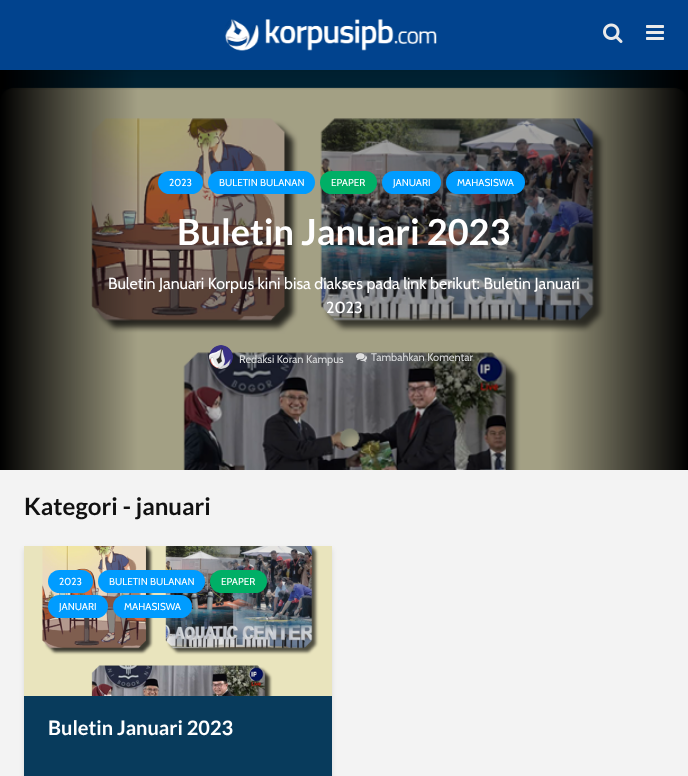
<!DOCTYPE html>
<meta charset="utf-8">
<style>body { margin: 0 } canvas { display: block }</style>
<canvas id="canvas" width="688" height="776"></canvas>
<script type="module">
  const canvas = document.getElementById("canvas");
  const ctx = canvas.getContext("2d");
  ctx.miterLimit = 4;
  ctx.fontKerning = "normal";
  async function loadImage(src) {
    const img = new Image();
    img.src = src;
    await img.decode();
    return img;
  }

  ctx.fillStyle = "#f3f3f3";
  ctx.fillRect(0, 0, 688, 776);
  ctx.drawImage(await loadImage("img4.png"), 0, 70, 688, 400);
  ctx.fillStyle = "rgba(0, 0, 0, 0.15)";
  ctx.filter = "blur(10px)";
  ctx.beginPath();
  ctx.rect(0, 0, 688, 70);
  ctx.fill();
  ctx.filter = "none";
  ctx.fillStyle = "#01438e";
  ctx.fillRect(0, 0, 688, 70);
  ctx.drawImage(await loadImage("img1.png"), 224, 19, 213, 32);
  ctx.drawImage(await loadImage("img2.png"), 603, 23, 20, 20);
  ctx.drawImage(await loadImage("img3.png"), 646, 25, 18, 15);
  ctx.fillStyle = "#009cff";
  ctx.beginPath();
  ctx.roundRect(158, 171, 45, 23, 11.5);
  ctx.fill();
  ctx.font = "10px Cabin";
  ctx.fillStyle = "#ffffff";
  ctx.fillText("2023", 169, 186);
  ctx.fillStyle = "#009cff";
  ctx.beginPath();
  ctx.roundRect(208, 171, 107, 23, 11.5);
  ctx.fill();
  ctx.fillStyle = "#ffffff";
  ctx.fillText("BULETIN BULANAN", 219, 186);
  ctx.fillStyle = "#00af66";
  ctx.beginPath();
  ctx.roundRect(320, 171, 57, 23, 11.5);
  ctx.fill();
  ctx.fillStyle = "#ffffff";
  ctx.fillText("EPAPER", 331, 186);
  ctx.fillStyle = "#009cff";
  ctx.beginPath();
  ctx.roundRect(382, 171, 59, 23, 11.5);
  ctx.fill();
  ctx.fillStyle = "#ffffff";
  ctx.fillText("JANUARI", 393, 186);
  ctx.fillStyle = "#009cff";
  ctx.beginPath();
  ctx.roundRect(446, 171, 79, 23, 11.5);
  ctx.fill();
  ctx.fillStyle = "#ffffff";
  ctx.fillText("MAHASISWA", 457, 186);
  ctx.font = "bold 36px Lato";
  ctx.fillText("Buletin Januari 2023", 177, 245);
  ctx.font = "16px Cabin";
  ctx.fillText("Buletin Januari Korpus kini bisa diakses pada link berikut: Buletin Januari", 108, 289);
  ctx.fillText("2023", 326, 313);
  ctx.drawImage(await loadImage("img5.png"), 209, 345, 24, 24);
  ctx.font = "11px Cabin";
  ctx.fillStyle = "#dadbdc";
  ctx.fillText("Redaksi Koran Kampus", 239, 363);
  ctx.drawImage(await loadImage("img6.png"), 356, 353, 11, 9);
  ctx.fillText("Tambahkan Komentar", 371, 361);
  ctx.font = "bold 24px Lato";
  ctx.fillStyle = "#111111";
  ctx.fillText("Kategori - januari", 24, 515);
  ctx.fillStyle = "rgba(0, 1, 1, 0.1)";
  ctx.filter = "blur(2.5px)";
  ctx.beginPath();
  ctx.rect(24, 549, 308, 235);
  ctx.fill();
  ctx.filter = "none";
  ctx.fillStyle = "#083b5c";
  ctx.fillRect(24, 696, 308, 80);
  ctx.drawImage(await loadImage("img7.png"), 24, 546, 308, 150);
  ctx.fillStyle = "#009cff";
  ctx.beginPath();
  ctx.roundRect(48, 570, 45, 23, 11.5);
  ctx.fill();
  ctx.font = "10px Cabin";
  ctx.fillStyle = "#ffffff";
  ctx.fillText("2023", 59, 585);
  ctx.fillStyle = "#009cff";
  ctx.beginPath();
  ctx.roundRect(98, 570, 107, 23, 11.5);
  ctx.fill();
  ctx.fillStyle = "#ffffff";
  ctx.fillText("BULETIN BULANAN", 109, 585);
  ctx.fillStyle = "#00af66";
  ctx.beginPath();
  ctx.roundRect(210, 570, 57, 23, 11.5);
  ctx.fill();
  ctx.fillStyle = "#ffffff";
  ctx.fillText("EPAPER", 221, 585);
  ctx.fillStyle = "#009cff";
  ctx.beginPath();
  ctx.roundRect(48, 595, 60, 23, 11.5);
  ctx.fill();
  ctx.fillStyle = "#ffffff";
  ctx.fillText("JANUARI", 59, 610);
  ctx.fillStyle = "#009cff";
  ctx.beginPath();
  ctx.roundRect(113, 595, 79, 23, 11.5);
  ctx.fill();
  ctx.fillStyle = "#ffffff";
  ctx.fillText("MAHASISWA", 124, 610);
  ctx.font = "bold 20px Lato";
  ctx.fillText("Buletin Januari 2023", 48, 735);
</script>
